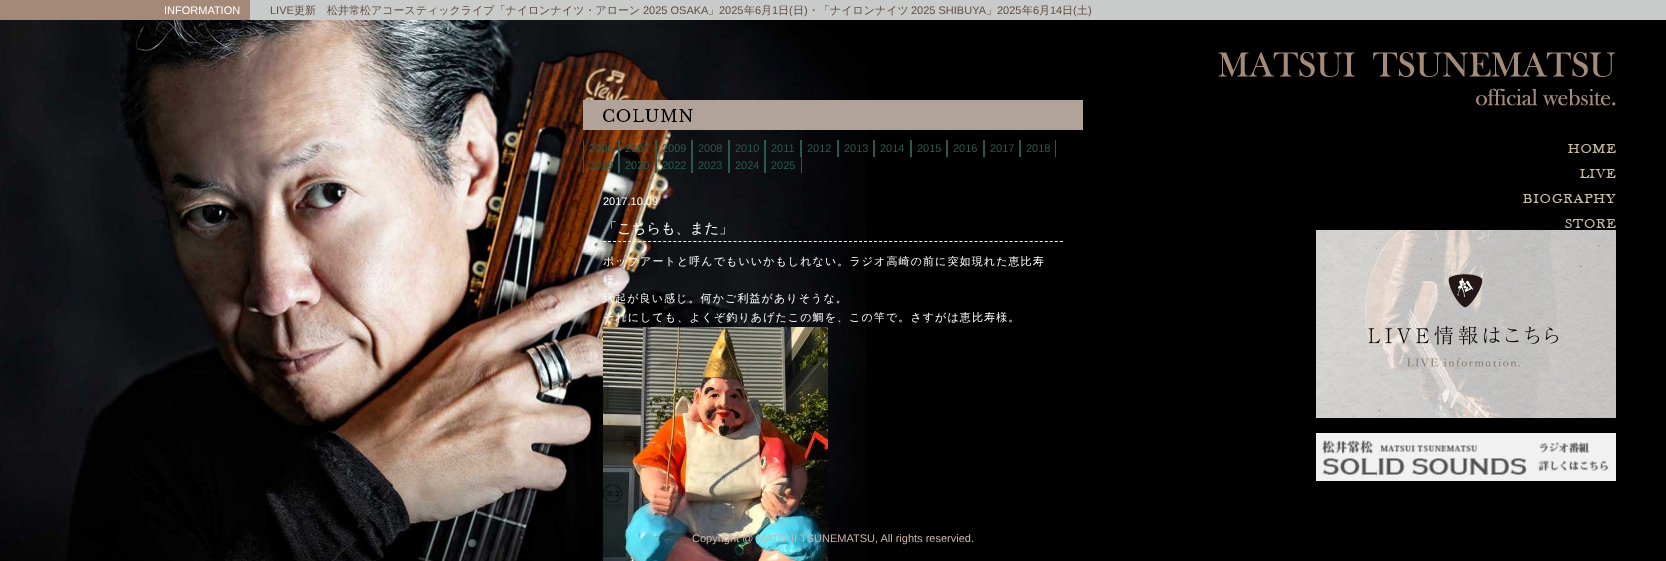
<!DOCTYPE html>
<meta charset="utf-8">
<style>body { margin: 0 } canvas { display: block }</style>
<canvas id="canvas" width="1666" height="561"></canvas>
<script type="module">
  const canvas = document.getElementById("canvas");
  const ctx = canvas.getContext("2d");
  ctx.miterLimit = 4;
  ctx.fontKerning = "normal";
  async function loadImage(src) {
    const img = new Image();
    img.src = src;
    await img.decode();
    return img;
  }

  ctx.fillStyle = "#000000";
  ctx.fillRect(0, 0, 1666, 561);
  ctx.fillStyle = "#c9caca";
  ctx.fillRect(250, 0, 1416, 20);
  ctx.fillStyle = "#a48978";
  ctx.fillRect(0, 0, 250, 20);
  ctx.font = "11px Liberation Sans";
  ctx.fillStyle = "#ffffff";
  ctx.fillText("INFORMATION", 164, 14);
  ctx.fillStyle = "#624d42";
  ctx.fillText("LIVE", 270, 14);
  ctx.font = "500 11px WenQuanYi Zen Hei";
  ctx.fillText("更新　松井常松アコースティックライブ「ナイロンナイツ・アローン", 294, 14);
  ctx.font = "11px Liberation Sans";
  ctx.fillText("2025 OSAKA", 643, 14);
  ctx.font = "500 11px WenQuanYi Zen Hei";
  ctx.fillText("」", 708, 14);
  ctx.font = "11px Liberation Sans";
  ctx.fillText("2025", 719, 14);
  ctx.font = "500 11px WenQuanYi Zen Hei";
  ctx.fillText("年", 744, 14);
  ctx.font = "11px Liberation Sans";
  ctx.fillText("6", 755, 14);
  ctx.font = "500 11px WenQuanYi Zen Hei";
  ctx.fillText("月", 761, 14);
  ctx.font = "11px Liberation Sans";
  ctx.fillText("1", 772, 14);
  ctx.font = "500 11px WenQuanYi Zen Hei";
  ctx.fillText("日", 778, 14);
  ctx.font = "11px Liberation Sans";
  ctx.fillText("(", 789, 14);
  ctx.font = "500 11px WenQuanYi Zen Hei";
  ctx.fillText("日", 793, 14);
  ctx.font = "11px Liberation Sans";
  ctx.fillText(")", 804, 14);
  ctx.font = "500 11px WenQuanYi Zen Hei";
  ctx.fillText("・「ナイロンナイツ", 808, 14);
  ctx.font = "11px Liberation Sans";
  ctx.fillText("2025 SHIBUYA", 911, 14);
  ctx.font = "500 11px WenQuanYi Zen Hei";
  ctx.fillText("」", 986, 14);
  ctx.font = "11px Liberation Sans";
  ctx.fillText("2025", 997, 14);
  ctx.font = "500 11px WenQuanYi Zen Hei";
  ctx.fillText("年", 1022, 14);
  ctx.font = "11px Liberation Sans";
  ctx.fillText("6", 1033, 14);
  ctx.font = "500 11px WenQuanYi Zen Hei";
  ctx.fillText("月", 1039, 14);
  ctx.font = "11px Liberation Sans";
  ctx.fillText("14", 1050, 14);
  ctx.font = "500 11px WenQuanYi Zen Hei";
  ctx.fillText("日", 1062, 14);
  ctx.font = "11px Liberation Sans";
  ctx.fillText("(", 1073, 14);
  ctx.font = "500 11px WenQuanYi Zen Hei";
  ctx.fillText("土", 1077, 14);
  ctx.font = "11px Liberation Sans";
  ctx.fillText(")", 1088, 14);
  ctx.drawImage(await loadImage("img10.png"), 0, 20, 867, 541);
  ctx.drawImage(await loadImage("img1.png"), 583, 100, 500, 30);
  ctx.fillStyle = "#2a5b4a";
  ctx.fillRect(618, 140, 2, 17);
  ctx.fillRect(583, 140, 1, 33);
  ctx.fillText("2006", 589, 152);
  ctx.fillRect(655, 140, 2, 17);
  ctx.fillText("2007", 625, 152);
  ctx.fillRect(691, 140, 2, 17);
  ctx.fillText("2009", 662, 152);
  ctx.fillRect(728, 140, 2, 17);
  ctx.fillText("2008", 698, 152);
  ctx.fillRect(764, 140, 2, 17);
  ctx.fillText("2010", 735, 152);
  ctx.fillRect(800, 140, 2, 17);
  ctx.fillText("2011", 771, 152);
  ctx.fillRect(837, 140, 2, 17);
  ctx.fillText("2012", 807, 152);
  ctx.fillRect(873, 140, 2, 17);
  ctx.fillText("2013", 844, 152);
  ctx.fillRect(910, 140, 2, 17);
  ctx.fillText("2014", 880, 152);
  ctx.fillRect(946, 140, 2, 17);
  ctx.fillText("2015", 917, 152);
  ctx.fillRect(983, 140, 2, 17);
  ctx.fillText("2016", 953, 152);
  ctx.fillRect(1019, 140, 2, 17);
  ctx.fillText("2017", 990, 152);
  ctx.fillRect(1055, 140, 1, 17);
  ctx.fillText("2018", 1026, 152);
  ctx.fillRect(618, 157, 2, 16);
  ctx.fillText("2019", 589, 169);
  ctx.fillRect(655, 157, 2, 16);
  ctx.fillText("2020", 625, 169);
  ctx.fillRect(691, 157, 2, 16);
  ctx.fillText("2022", 662, 169);
  ctx.fillRect(728, 157, 2, 16);
  ctx.fillText("2023", 698, 169);
  ctx.fillRect(764, 157, 2, 16);
  ctx.fillText("2024", 735, 169);
  ctx.fillRect(801, 157, 1, 16);
  ctx.fillText("2025", 771, 169);
  ctx.fillStyle = "#ffffff";
  ctx.fillText("2017.10.09", 603, 205);
  ctx.beginPath();
  ctx.moveTo(603, 241.5);
  ctx.lineTo(1063, 241.5);
  ctx.strokeStyle = "#ffffff";
  ctx.setLineDash([3, 2.02]);
  ctx.stroke();
  ctx.font = "500 14.25px WenQuanYi Zen Hei";
  ctx.fillText("「こちらも、また」", 603, 233);
  ctx.letterSpacing = "1.1px";
  ctx.font = "500 11px WenQuanYi Zen Hei";
  ctx.fillText("ポップアートと呼んでもいいかもしれない。ラジオ高崎の前に突如現れた恵比寿", 603, 265);
  ctx.fillText("様", 603, 284);
  ctx.fillText("縁起が良い感じ。何かご利益がありそうな。", 603, 302);
  ctx.fillText("それにしても、よくぞ釣りあげたこの鯛を、この竿で。さすがは恵比寿様。", 603, 321);
  ctx.drawImage(await loadImage("img2.png"), 603, 327, 225, 234);
  ctx.drawImage(await loadImage("img3.png"), 1218, 52, 398, 54);
  ctx.drawImage(await loadImage("img4.png"), 1568, 144, 48, 9);
  ctx.drawImage(await loadImage("img5.png"), 1580, 169, 36, 9);
  ctx.drawImage(await loadImage("img6.png"), 1523, 194, 93, 9);
  ctx.drawImage(await loadImage("img7.png"), 1565, 219, 51, 9);
  ctx.drawImage(await loadImage("img8.png"), 1316, 230, 300, 188);
  ctx.drawImage(await loadImage("img9.png"), 1316, 433, 300, 48);
  ctx.letterSpacing = "0px";
  ctx.font = "11px Liberation Sans";
  ctx.fillStyle = "#cab6ac";
  ctx.fillText("Copyright @ MATSUI TSUNEMATSU, All rights reservied.", 692, 542);
</script>
